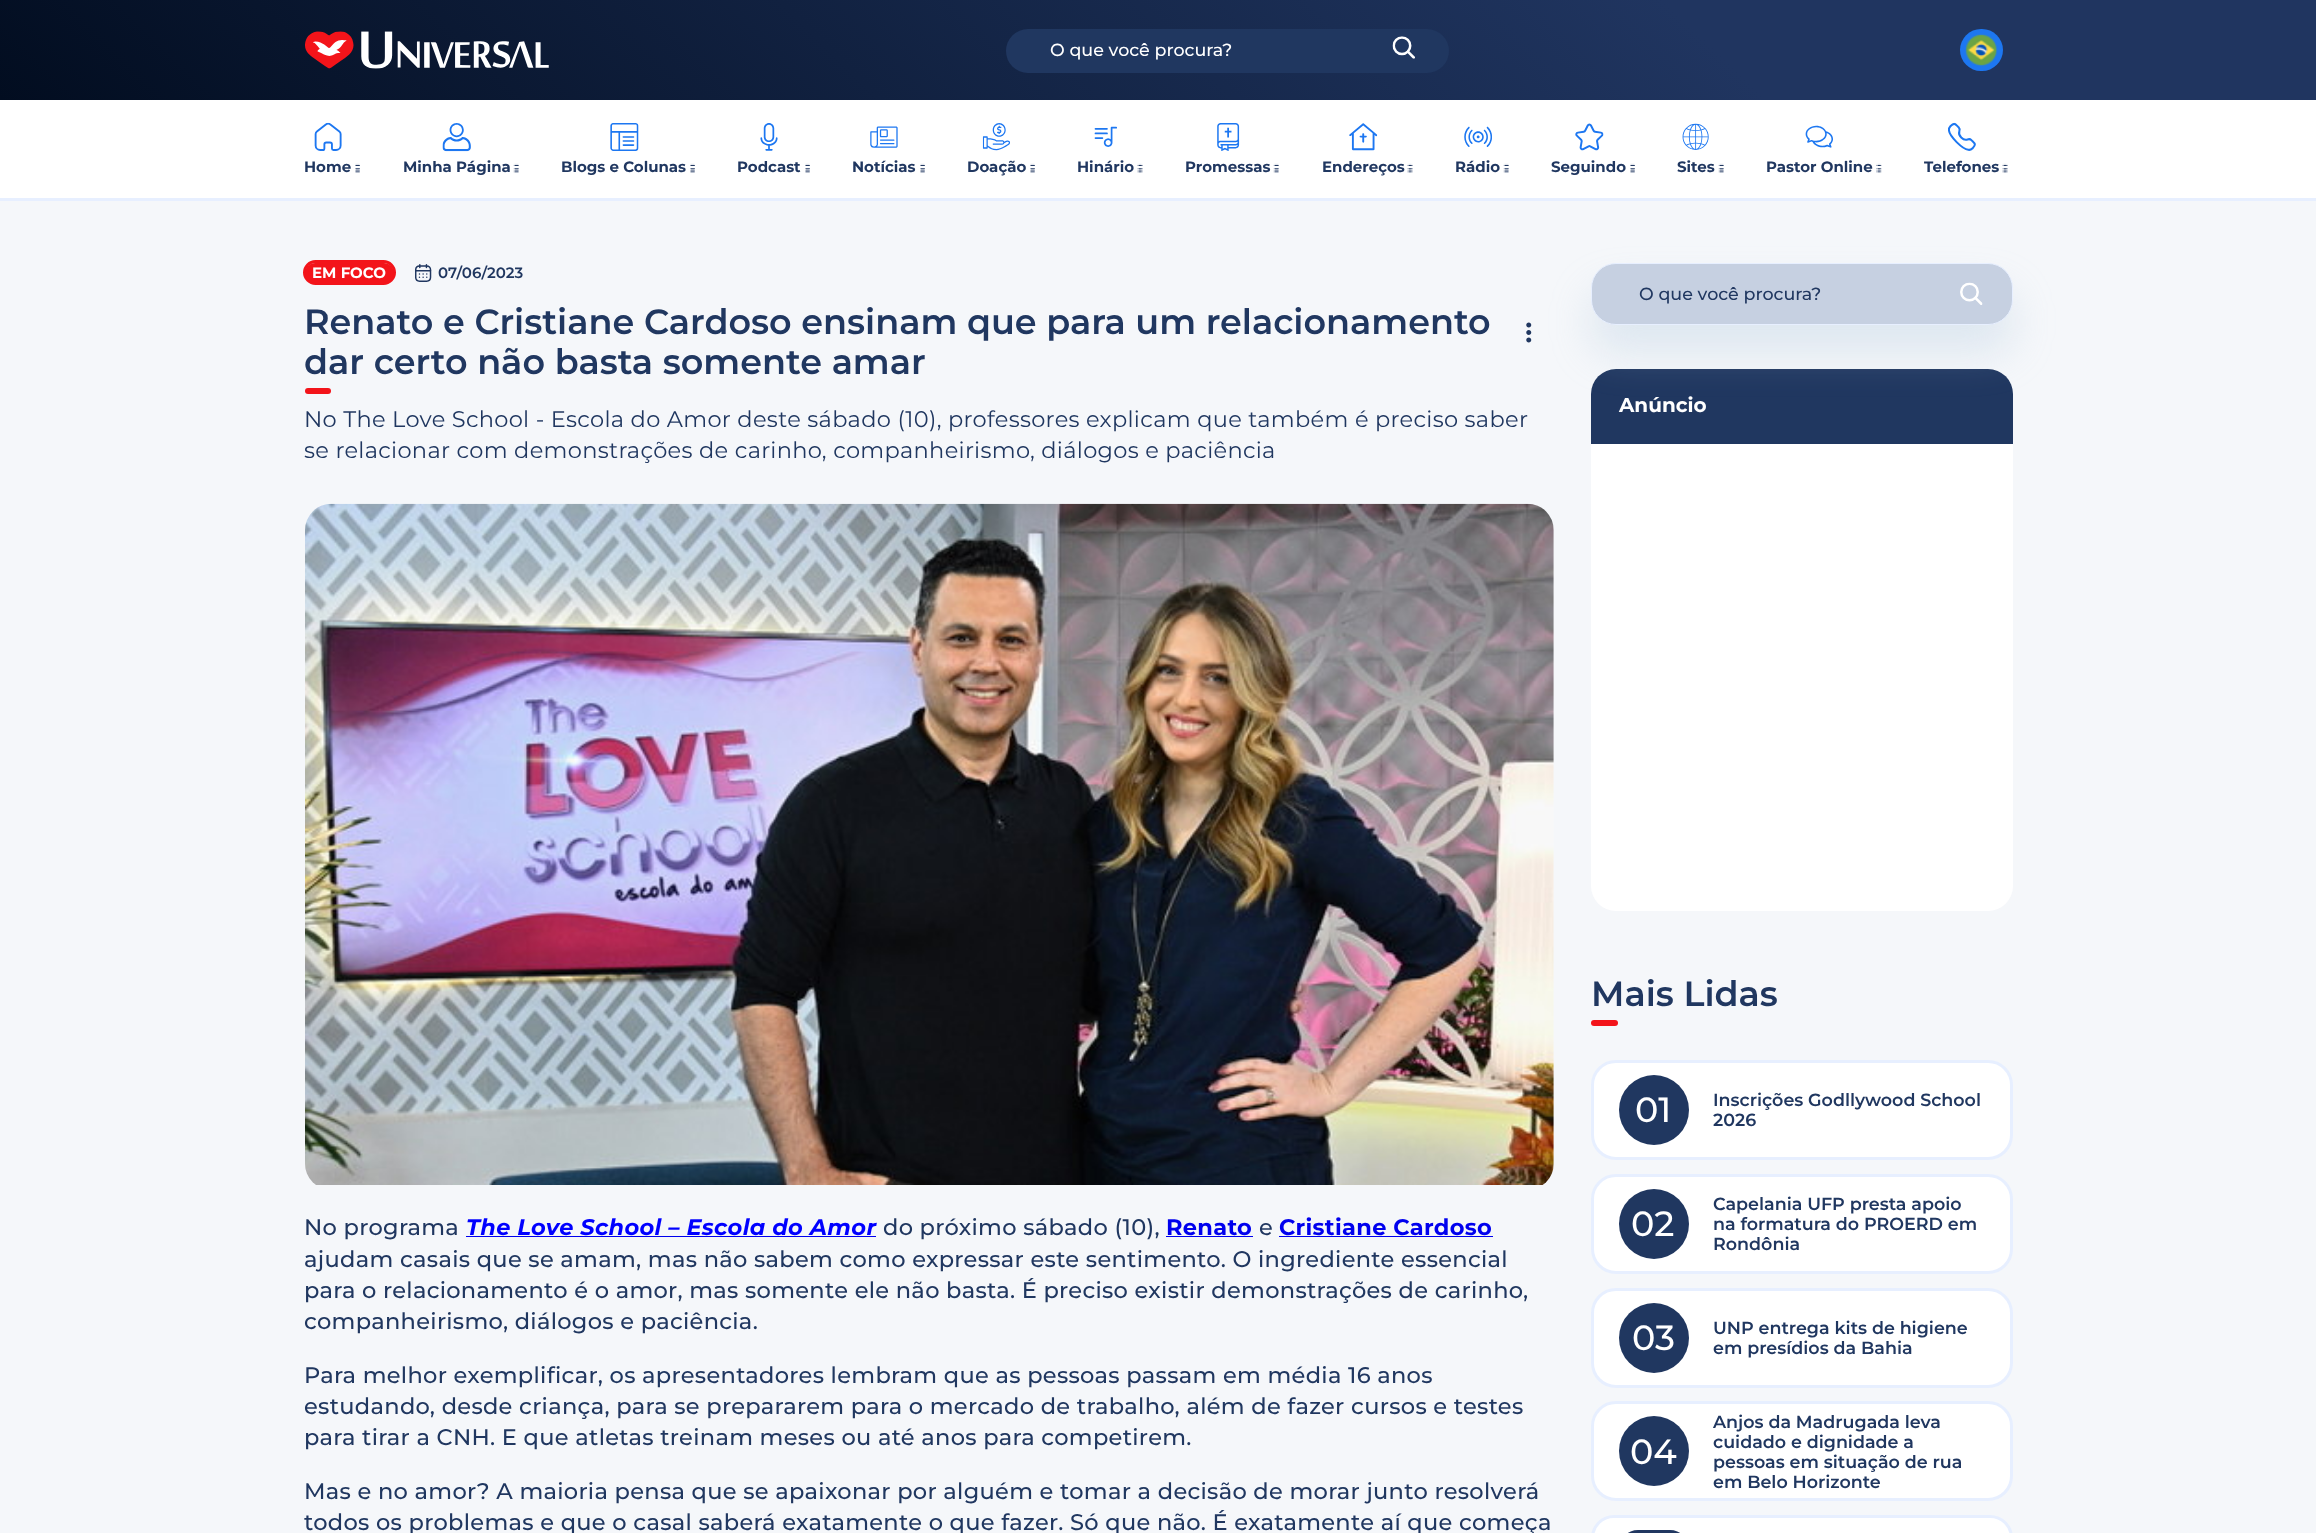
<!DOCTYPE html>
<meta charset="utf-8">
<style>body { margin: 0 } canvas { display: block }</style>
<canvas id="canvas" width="2316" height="1533"></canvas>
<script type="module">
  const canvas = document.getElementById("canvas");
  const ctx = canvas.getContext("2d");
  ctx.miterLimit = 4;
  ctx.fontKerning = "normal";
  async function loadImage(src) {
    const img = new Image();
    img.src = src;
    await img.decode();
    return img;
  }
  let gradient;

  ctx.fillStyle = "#f5f7fa";
  ctx.fillRect(0, 0, 2316, 1533);
  gradient = ctx.createLinearGradient(1744, -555, 572, 655);
  gradient.addColorStop(0.27, "#203560");
  gradient.addColorStop(1, "#020d20");
  ctx.fillStyle = gradient;
  ctx.fillRect(0, 0, 2316, 100);
  ctx.drawImage(await loadImage("img1.png"), 305, 31, 244, 38);
  ctx.fillStyle = "#203760";
  ctx.beginPath();
  ctx.roundRect(1006, 29, 443, 44, 22);
  ctx.fill();
  ctx.font = "500 17.5px Montserrat";
  ctx.fillStyle = "#ffffff";
  ctx.fillText("O que você procura?", 1050, 56);
  ctx.drawImage(await loadImage("img2.png"), 1392, 36, 23, 23);
  ctx.fillStyle = "#1d77f1";
  ctx.beginPath();
  ctx.roundRect(1960, 29, 43, 42, 21);
  ctx.fill();
  ctx.drawImage(await loadImage("img3.png"), 1965, 33, 33, 34);
  ctx.fillStyle = "#ffffff";
  ctx.fillRect(0, 100, 2316, 98);
  ctx.fillStyle = "#e7efff";
  ctx.fillRect(0, 198, 2316, 3);
  ctx.drawImage(await loadImage("img4.png"), 314, 122, 28, 29);
  ctx.font = "bold 15px Montserrat";
  ctx.fillStyle = "#203760";
  ctx.fillText("Home", 304, 172);
  ctx.drawImage(await loadImage("img5.png"), 355, 163, 5, 10);
  ctx.drawImage(await loadImage("img6.png"), 442, 123, 29, 29);
  ctx.fillText("Minha Página", 403, 172);
  ctx.drawImage(await loadImage("img7.png"), 513, 163, 6, 10);
  ctx.drawImage(await loadImage("img8.png"), 610, 123, 29, 28);
  ctx.fillText("Blogs e Colunas", 561, 172);
  ctx.drawImage(await loadImage("img5.png"), 690, 163, 5, 10);
  ctx.drawImage(await loadImage("img9.png"), 760, 123, 18, 28);
  ctx.fillText("Podcast", 737, 172);
  ctx.drawImage(await loadImage("img5.png"), 805, 163, 5, 10);
  ctx.drawImage(await loadImage("img10.png"), 870, 126, 28, 22);
  ctx.fillText("Notícias", 852, 172);
  ctx.drawImage(await loadImage("img5.png"), 920, 163, 5, 10);
  ctx.drawImage(await loadImage("img11.png"), 982, 123, 28, 28);
  ctx.fillText("Doação", 967, 172);
  ctx.drawImage(await loadImage("img5.png"), 1030, 163, 5, 10);
  ctx.drawImage(await loadImage("img12.png"), 1094, 126, 23, 21);
  ctx.fillText("Hinário", 1077, 172);
  ctx.drawImage(await loadImage("img13.png"), 1137, 163, 6, 10);
  ctx.drawImage(await loadImage("img14.png"), 1217, 123, 23, 28);
  ctx.fillText("Promessas", 1185, 172);
  ctx.drawImage(await loadImage("img7.png"), 1273, 163, 6, 10);
  ctx.drawImage(await loadImage("img15.png"), 1349, 123, 29, 28);
  ctx.fillText("Endereços", 1322, 172);
  ctx.drawImage(await loadImage("img13.png"), 1407, 163, 6, 10);
  ctx.drawImage(await loadImage("img16.png"), 1464, 126, 28, 21);
  ctx.fillText("Rádio", 1455, 172);
  ctx.drawImage(await loadImage("img7.png"), 1503, 163, 6, 10);
  ctx.drawImage(await loadImage("img17.png"), 1575, 123, 29, 28);
  ctx.fillText("Seguindo", 1551, 172);
  ctx.drawImage(await loadImage("img5.png"), 1630, 163, 5, 10);
  ctx.drawImage(await loadImage("img18.png"), 1682, 123, 27, 27);
  ctx.fillText("Sites", 1677, 172);
  ctx.drawImage(await loadImage("img7.png"), 1718, 163, 6, 10);
  ctx.drawImage(await loadImage("img19.png"), 1805, 125, 28, 23);
  ctx.fillText("Pastor Online", 1766, 172);
  ctx.drawImage(await loadImage("img20.png"), 1876, 163, 6, 10);
  ctx.drawImage(await loadImage("img21.png"), 1948, 122, 28, 29);
  ctx.fillText("Telefones", 1924, 172);
  ctx.drawImage(await loadImage("img13.png"), 2002, 163, 6, 10);
  ctx.beginPath();
  ctx.roundRect(304.5, 261.5, 90, 22, 11);
  ctx.strokeStyle = "#f3141a";
  ctx.lineWidth = 3;
  ctx.stroke();
  ctx.fillStyle = "#f3141a";
  ctx.beginPath();
  ctx.roundRect(306.5, 264.5, 86, 17, 8.5);
  ctx.fill();
  ctx.stroke();
  ctx.fillStyle = "#ffffff";
  ctx.fillText("EM FOCO", 312, 278);
  ctx.drawImage(await loadImage("img22.png"), 415, 264, 17, 18);
  ctx.font = "600 15px Montserrat";
  ctx.fillStyle = "#203760";
  ctx.fillText("07/06/2023", 438, 278);
  ctx.font = "600 35px Montserrat";
  ctx.fillText("Renato e Cristiane Cardoso ensinam que para um relacionamento", 304, 334);
  ctx.fillText("dar certo não basta somente amar", 304, 374);
  ctx.fillStyle = "#f3141a";
  ctx.beginPath();
  ctx.roundRect(305, 388, 26, 6, 3);
  ctx.fill();
  ctx.fillStyle = "#ffffff";
  ctx.beginPath();
  ctx.roundRect(1591, 369, 422, 542, 25);
  ctx.fill();
  ctx.fillStyle = "#203760";
  ctx.beginPath();
  ctx.roundRect(1591, 369, 422, 75, [25, 25, 0, 0]);
  ctx.fill();
  ctx.fillStyle = "rgba(170, 195, 219, 0.3)";
  ctx.filter = "blur(20px)";
  ctx.beginPath();
  ctx.roundRect(1591, 290, 422, 63, 25);
  ctx.fill();
  ctx.filter = "none";
  ctx.drawImage(await loadImage("img23.png"), 1526, 322, 6, 21);
  ctx.letterSpacing = "0.31px";
  ctx.font = "22.5px Montserrat";
  ctx.fillStyle = "#203760";
  ctx.fillText("No The Love School - Escola do Amor deste sábado (10), professores explicam que também é preciso saber", 304, 427);
  ctx.fillText("se relacionar com demonstrações de carinho, companheirismo, diálogos e paciência", 304, 458);
  ctx.drawImage(await loadImage("img24.png"), 305, 503, 1249, 682);
  ctx.font = "500 22.5px Montserrat";
  ctx.fillText("No programa", 304, 1235);
  ctx.font = "italic bold 22.5px Montserrat";
  ctx.fillStyle = "#0000ff";
  ctx.fillText("The Love School – Escola do Amor", 466, 1235);
  ctx.fillStyle = "#0000ee";
  ctx.fillRect(466, 1236, 410, 1);
  ctx.font = "500 22.5px Montserrat";
  ctx.fillStyle = "#203760";
  ctx.fillText("do próximo sábado (10),", 883, 1235);
  ctx.font = "bold 22.5px Montserrat";
  ctx.fillStyle = "#0000ee";
  ctx.fillText("Renato", 1166, 1235);
  ctx.fillRect(1166, 1236, 87, 1);
  ctx.font = "500 22.5px Montserrat";
  ctx.fillStyle = "#203760";
  ctx.fillText("e", 1259, 1235);
  ctx.font = "bold 22.5px Montserrat";
  ctx.fillStyle = "#0000ee";
  ctx.fillText("Cristiane Cardoso", 1279, 1235);
  ctx.fillRect(1279, 1236, 214, 1);
  ctx.font = "500 22.5px Montserrat";
  ctx.fillStyle = "#203760";
  ctx.fillText("ajudam casais que se amam, mas não sabem como expressar este sentimento. O ingrediente essencial", 304, 1267);
  ctx.fillText("para o relacionamento é o amor, mas somente ele não basta. É preciso existir demonstrações de carinho,", 304, 1298);
  ctx.fillText("companheirismo, diálogos e paciência.", 304, 1329);
  ctx.fillText("Para melhor exemplificar, os apresentadores lembram que as pessoas passam em média 16 anos", 304, 1383);
  ctx.fillText("estudando, desde criança, para se prepararem para o mercado de trabalho, além de fazer cursos e testes", 304, 1414);
  ctx.fillText("para tirar a CNH. E que atletas treinam meses ou até anos para competirem.", 304, 1445);
  ctx.fillText("Mas e no amor? A maioria pensa que se apaixonar por alguém e tomar a decisão de morar junto resolverá", 304, 1499);
  ctx.fillText("todos os problemas e que o casal saberá exatamente o que fazer. Só que não. É exatamente aí que começa", 304, 1530);
  ctx.fillStyle = "#c6d0e1";
  ctx.beginPath();
  ctx.roundRect(1591.5, 263.5, 421, 61, 24.5);
  ctx.fill();
  ctx.strokeStyle = "#e7efff";
  ctx.lineWidth = 1;
  ctx.stroke();
  ctx.letterSpacing = "0px";
  ctx.font = "500 17.5px Montserrat";
  ctx.fillStyle = "#203760";
  ctx.fillText("O que você procura?", 1639, 300);
  ctx.drawImage(await loadImage("img25.png"), 1960, 282, 23, 23);
  ctx.font = "bold 20px Montserrat";
  ctx.fillStyle = "#ffffff";
  ctx.fillText("Anúncio", 1619, 412);
  ctx.font = "600 35px Montserrat";
  ctx.fillStyle = "#203760";
  ctx.fillText("Mais Lidas", 1591, 1006);
  ctx.fillStyle = "#f3141a";
  ctx.beginPath();
  ctx.roundRect(1591, 1020, 27, 6, 3);
  ctx.fill();
  ctx.fillStyle = "#ffffff";
  ctx.beginPath();
  ctx.roundRect(1592.5, 1061.5, 419, 97, 23.5);
  ctx.fill();
  ctx.lineWidth = 3;
  ctx.stroke();
  ctx.fillStyle = "#203760";
  ctx.beginPath();
  ctx.arc(1654, 1110, 35, 0, Math.PI * 2);
  ctx.fill();
  ctx.font = "500 35px Montserrat";
  ctx.fillStyle = "#ffffff";
  ctx.fillText("01", 1635, 1122);
  ctx.font = "600 17.5px Montserrat";
  ctx.fillStyle = "#203760";
  ctx.fillText("Inscrições Godllywood School", 1713, 1106);
  ctx.fillText("2026", 1713, 1126);
  ctx.fillStyle = "#ffffff";
  ctx.beginPath();
  ctx.roundRect(1592.5, 1175.5, 419, 97, 23.5);
  ctx.fill();
  ctx.stroke();
  ctx.fillStyle = "#203760";
  ctx.beginPath();
  ctx.arc(1654, 1224, 35, 0, Math.PI * 2);
  ctx.fill();
  ctx.font = "500 35px Montserrat";
  ctx.fillStyle = "#ffffff";
  ctx.fillText("02", 1631, 1236);
  ctx.font = "600 17.5px Montserrat";
  ctx.fillStyle = "#203760";
  ctx.fillText("Capelania UFP presta apoio", 1713, 1210);
  ctx.fillText("na formatura do PROERD em", 1713, 1230);
  ctx.fillText("Rondônia", 1713, 1250);
  ctx.fillStyle = "#ffffff";
  ctx.beginPath();
  ctx.roundRect(1592.5, 1289.5, 419, 97, 23.5);
  ctx.fill();
  ctx.stroke();
  ctx.fillStyle = "#203760";
  ctx.beginPath();
  ctx.arc(1654, 1338, 35, 0, Math.PI * 2);
  ctx.fill();
  ctx.font = "500 35px Montserrat";
  ctx.fillStyle = "#ffffff";
  ctx.fillText("03", 1632, 1350);
  ctx.font = "600 17.5px Montserrat";
  ctx.fillStyle = "#203760";
  ctx.fillText("UNP entrega kits de higiene", 1713, 1334);
  ctx.fillText("em presídios da Bahia", 1713, 1354);
  ctx.fillStyle = "#ffffff";
  ctx.beginPath();
  ctx.roundRect(1592.5, 1402.5, 419, 97, 23.5);
  ctx.fill();
  ctx.stroke();
  ctx.fillStyle = "#203760";
  ctx.beginPath();
  ctx.arc(1654, 1451, 35, 0, Math.PI * 2);
  ctx.fill();
  ctx.font = "500 35px Montserrat";
  ctx.fillStyle = "#ffffff";
  ctx.fillText("04", 1630, 1464);
  ctx.font = "600 17.5px Montserrat";
  ctx.fillStyle = "#203760";
  ctx.fillText("Anjos da Madrugada leva", 1713, 1428);
  ctx.fillText("cuidado e dignidade a", 1713, 1448);
  ctx.fillText("pessoas em situação de rua", 1713, 1468);
  ctx.fillText("em Belo Horizonte", 1713, 1488);
  ctx.fillStyle = "#ffffff";
  ctx.beginPath();
  ctx.roundRect(1592.5, 1516.5, 419, 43, 23.5);
  ctx.fill();
  ctx.stroke();
  ctx.fillStyle = "#203760";
  ctx.beginPath();
  ctx.roundRect(1619, 1530, 70, 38, 35);
  ctx.fill();
</script>
